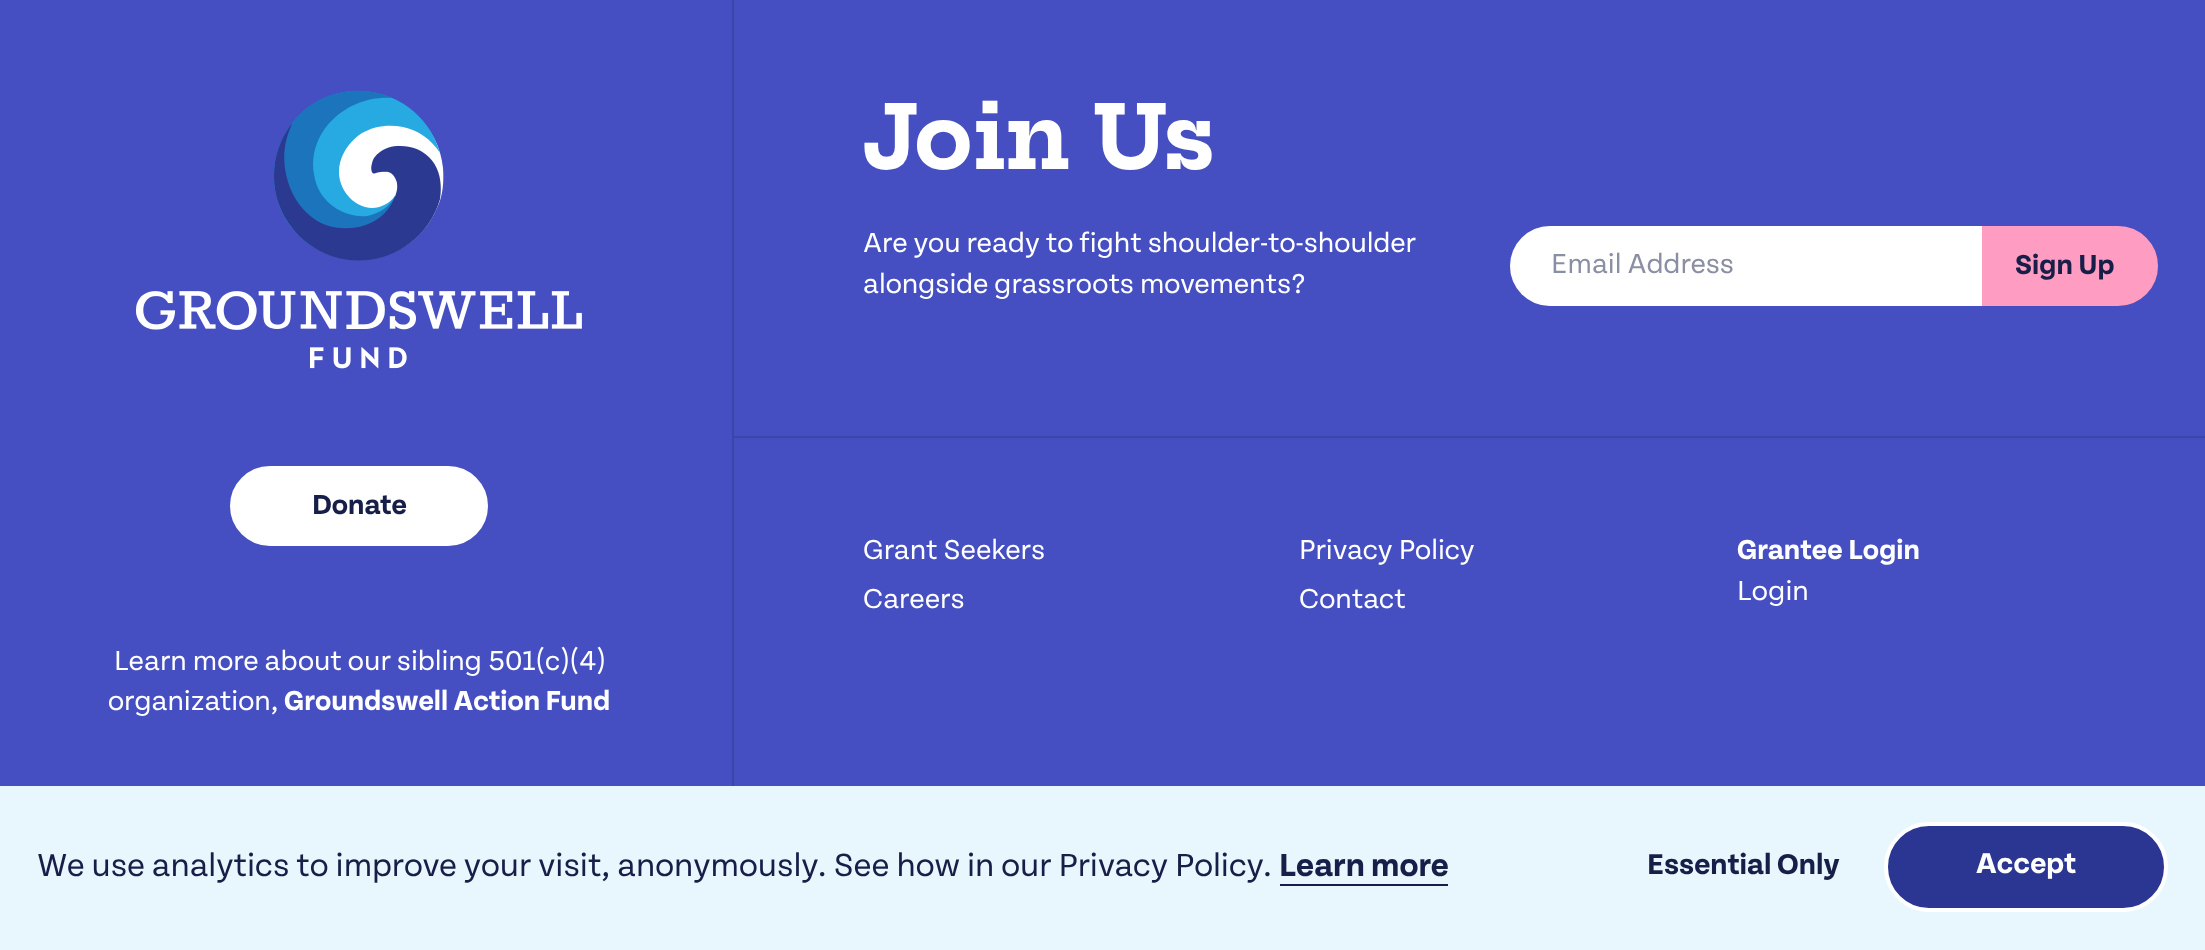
<!DOCTYPE html>
<meta charset="utf-8">
<style>body { margin: 0 } canvas { display: block }</style>
<canvas id="canvas" width="2205" height="950"></canvas>
<script type="module">
  const canvas = document.getElementById("canvas");
  const ctx = canvas.getContext("2d");
  ctx.miterLimit = 4;
  ctx.fontKerning = "normal";
  async function loadImage(src) {
    const img = new Image();
    img.src = src;
    await img.decode();
    return img;
  }

  ctx.fillStyle = "#454fc1";
  ctx.fillRect(0, 0, 2205, 950);
  ctx.letterSpacing = "-0.5px";
  ctx.font = "200 87px Hepta Slab";
  ctx.fillStyle = "#ffffff";
  ctx.fillText("Join Us", 863, 169);
  ctx.letterSpacing = "0px";
  ctx.font = "29.1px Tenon";
  ctx.fillText("Are you ready to fight shoulder-to-shoulder", 863, 252);
  ctx.fillText("alongside grassroots movements?", 863, 293);
  ctx.beginPath();
  ctx.roundRect(1510, 226, 474, 80, [40, 0, 0, 40]);
  ctx.fill();
  ctx.beginPath();
  ctx.roundRect(1511, 227, 472, 78, [39, 0, 0, 39]);
  ctx.strokeStyle = "rgba(255, 255, 255, 0.2)";
  ctx.lineWidth = 2;
  ctx.stroke();
  ctx.fillStyle = "#8b8fa4";
  ctx.fillText("Email Address", 1551, 273);
  ctx.fillStyle = "#ff9cc2";
  ctx.beginPath();
  ctx.roundRect(1983, 227, 174, 78, [0, 39, 39, 0]);
  ctx.fill();
  ctx.strokeStyle = "#ff9cc2";
  ctx.stroke();
  ctx.font = "bold 29.1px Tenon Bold";
  ctx.fillStyle = "#171f48";
  ctx.fillText("Sign Up", 2015, 274);
  ctx.fillStyle = "#ffffff";
  ctx.beginPath();
  ctx.moveTo(360, 95);
  ctx.bezierCurveTo(403, 95, 439, 125, 443, 168);
  ctx.bezierCurveTo(444, 182, 443, 196, 437, 208);
  ctx.bezierCurveTo(431, 223, 420, 236, 407, 245);
  ctx.bezierCurveTo(393, 254, 377, 259, 360, 259);
  ctx.bezierCurveTo(343, 259, 325, 253, 311, 242);
  ctx.bezierCurveTo(299, 234, 290, 222, 284, 209);
  ctx.bezierCurveTo(260, 154, 302, 95, 360, 95);
  ctx.closePath();
  ctx.fill();
  ctx.fillStyle = "#26aae1";
  ctx.beginPath();
  ctx.moveTo(440, 153);
  ctx.bezierCurveTo(432, 140, 418, 130, 403, 127);
  ctx.bezierCurveTo(389, 124, 374, 126, 362, 133);
  ctx.bezierCurveTo(351, 140, 343, 151, 340, 163);
  ctx.bezierCurveTo(332, 196, 372, 225, 395, 196);
  ctx.lineTo(395, 202);
  ctx.bezierCurveTo(394, 206, 394, 210, 392, 213);
  ctx.bezierCurveTo(389, 222, 384, 230, 378, 237);
  ctx.bezierCurveTo(369, 246, 358, 252, 345, 255);
  ctx.lineTo(334, 256);
  ctx.lineTo(328, 254);
  ctx.bezierCurveTo(313, 249, 301, 239, 291, 227);
  ctx.bezierCurveTo(279, 211, 273, 191, 274, 171);
  ctx.bezierCurveTo(275, 156, 280, 141, 289, 128);
  ctx.bezierCurveTo(329, 68, 421, 84, 440, 153);
  ctx.closePath();
  ctx.fill();
  ctx.fillStyle = "#1c74bc";
  ctx.beginPath();
  ctx.moveTo(359, 260);
  ctx.bezierCurveTo(338, 260, 317, 253, 302, 238);
  ctx.bezierCurveTo(248, 189, 277, 98, 350, 91);
  ctx.bezierCurveTo(365, 90, 380, 92, 393, 98);
  ctx.bezierCurveTo(350, 94, 307, 129, 314, 174);
  ctx.bezierCurveTo(316, 189, 324, 201, 337, 209);
  ctx.bezierCurveTo(346, 214, 356, 217, 367, 216);
  ctx.bezierCurveTo(378, 214, 390, 207, 395, 196);
  ctx.bezierCurveTo(394, 219, 388, 260, 359, 260);
  ctx.closePath();
  ctx.fill();
  ctx.drawImage(await loadImage("img1.png"), 274, 124, 167, 137);
  ctx.drawImage(await loadImage("img2.png"), 136, 291, 446, 39);
  ctx.drawImage(await loadImage("img3.png"), 310, 347, 97, 22);
  ctx.fillStyle = "#3c45a9";
  ctx.fillRect(732, 0, 2, 786);
  ctx.fillStyle = "#ffffff";
  ctx.beginPath();
  ctx.roundRect(231, 467, 256, 78, 39);
  ctx.fill();
  ctx.strokeStyle = "#ffffff";
  ctx.stroke();
  ctx.fillStyle = "#171f48";
  ctx.fillText("Donate", 312, 514);
  ctx.font = "29.1px Tenon";
  ctx.fillStyle = "#ffffff";
  ctx.fillText("Learn more about our sibling 501(c)(4)", 114, 670);
  ctx.fillText("organization,", 108, 710);
  ctx.font = "bold 29.1px Tenon Bold";
  ctx.fillText("Groundswell Action Fund", 284, 710);
  ctx.fillStyle = "#3c45a9";
  ctx.fillRect(734, 436, 1471, 2);
  ctx.font = "29.1px Tenon";
  ctx.fillStyle = "#ffffff";
  ctx.fillText("Grant Seekers", 863, 559);
  ctx.fillText("Privacy Policy", 1299, 559);
  ctx.fillText("Careers", 863, 608);
  ctx.fillText("Contact", 1299, 608);
  ctx.font = "bold 29.1px Tenon Bold";
  ctx.fillText("Grantee Login", 1737, 559);
  ctx.font = "29.1px Tenon";
  ctx.fillText("Login", 1737, 600);
  ctx.fillStyle = "#e8f7fe";
  ctx.fillRect(0, 786, 2205, 164);
  ctx.font = "34px Tenon";
  ctx.fillStyle = "#171f48";
  ctx.fillText("We use analytics to improve your visit, anonymously. See how in our Privacy Policy.", 37, 876);
  ctx.font = "bold 34px Tenon Bold";
  ctx.fillText("Learn more", 1279, 876);
  ctx.fillRect(1280, 884, 168, 2);
  ctx.font = "bold 30.5px Tenon Bold";
  ctx.fillText("Essential Only", 1647, 874);
  ctx.fillStyle = "#2a3692";
  ctx.beginPath();
  ctx.roundRect(1886, 824, 280, 86, 43);
  ctx.fill();
  ctx.lineWidth = 4;
  ctx.stroke();
  ctx.fillStyle = "#ffffff";
  ctx.fillText("Accept", 1976, 873);
</script>
